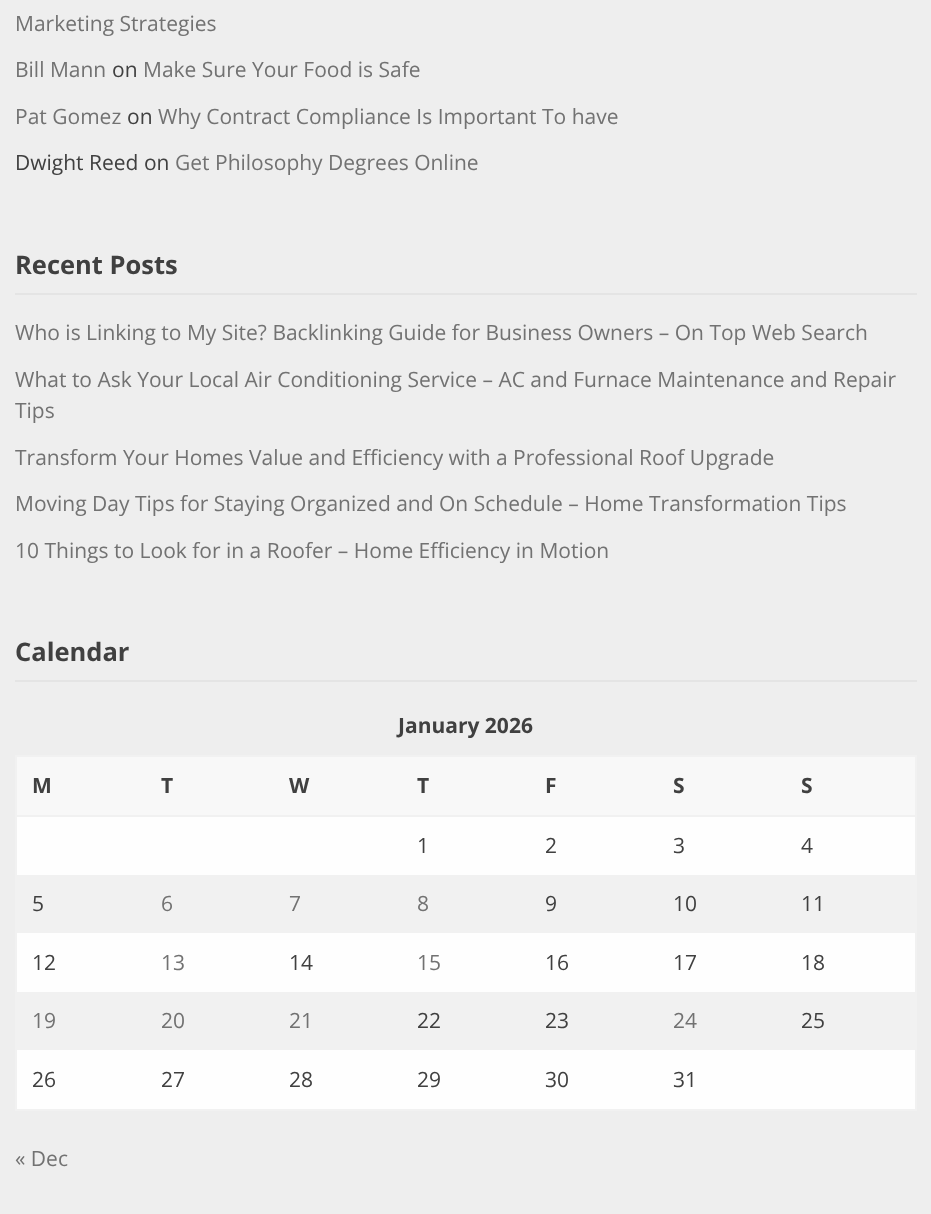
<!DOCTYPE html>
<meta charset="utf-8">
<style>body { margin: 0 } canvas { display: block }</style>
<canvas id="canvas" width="931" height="1214"></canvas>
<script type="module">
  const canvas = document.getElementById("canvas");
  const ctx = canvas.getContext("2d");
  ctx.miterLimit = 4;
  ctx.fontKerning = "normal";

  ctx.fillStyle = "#eeeeee";
  ctx.fillRect(0, 0, 931, 1214);
  ctx.font = "21px Open Sans";
  ctx.fillStyle = "#727272";
  ctx.fillText("Marketing Strategies", 15, 31);
  ctx.fillText("Bill Mann", 15, 77);
  ctx.fillStyle = "#404040";
  ctx.fillText("on", 112, 77);
  ctx.fillStyle = "#727272";
  ctx.fillText("Make Sure Your Food is Safe", 143, 77);
  ctx.fillText("Pat Gomez", 15, 124);
  ctx.fillStyle = "#404040";
  ctx.fillText("on", 127, 124);
  ctx.fillStyle = "#727272";
  ctx.fillText("Why Contract Compliance Is Important To have", 158, 124);
  ctx.fillStyle = "#404040";
  ctx.fillText("Dwight Reed on", 15, 170);
  ctx.fillStyle = "#727272";
  ctx.fillText("Get Philosophy Degrees Online", 175, 170);
  ctx.fillStyle = "#e4e4e4";
  ctx.fillRect(15, 293, 902, 2);
  ctx.font = "bold 25.5px Open Sans";
  ctx.fillStyle = "#404040";
  ctx.fillText("Recent Posts", 15, 274);
  ctx.font = "21px Open Sans";
  ctx.fillStyle = "#727272";
  ctx.fillText("Who is Linking to My Site? Backlinking Guide for Business Owners – On Top Web Search", 15, 340);
  ctx.fillText("What to Ask Your Local Air Conditioning Service – AC and Furnace Maintenance and Repair", 15, 387);
  ctx.fillText("Tips", 15, 418);
  ctx.fillText("Transform Your Homes Value and Efficiency with a Professional Roof Upgrade", 15, 465);
  ctx.fillText("Moving Day Tips for Staying Organized and On Schedule – Home Transformation Tips", 15, 511);
  ctx.fillText("10 Things to Look for in a Roofer – Home Efficiency in Motion", 15, 558);
  ctx.fillStyle = "#e4e4e4";
  ctx.fillRect(15, 680, 902, 2);
  ctx.font = "bold 25.5px Open Sans";
  ctx.fillStyle = "#404040";
  ctx.fillText("Calendar", 15, 661);
  ctx.font = "bold 21px Open Sans";
  ctx.fillText("January 2026", 398, 733);
  ctx.fillStyle = "#f8f8f8";
  ctx.fillRect(17, 757, 898, 58);
  ctx.fillStyle = "#f1f1f1";
  ctx.fillRect(15, 755, 902, 2);
  ctx.fillRect(15, 815, 902, 2);
  ctx.fillRect(915, 815, 2, 295);
  ctx.fillRect(915, 755, 2, 61);
  ctx.fillRect(15, 1109, 902, 2);
  ctx.fillRect(15, 815, 2, 295);
  ctx.fillRect(15, 755, 2, 61);
  ctx.fillStyle = "#404040";
  ctx.fillText("M", 32, 793);
  ctx.fillText("T", 161, 793);
  ctx.fillText("W", 289, 793);
  ctx.fillText("T", 417, 793);
  ctx.fillText("F", 545, 793);
  ctx.fillText("S", 673, 793);
  ctx.fillText("S", 801, 793);
  ctx.fillStyle = "#fefefe";
  ctx.fillRect(17, 817, 898, 292);
  ctx.font = "21px Open Sans";
  ctx.fillStyle = "#404040";
  ctx.fillText("1", 417, 853);
  ctx.fillText("2", 545, 853);
  ctx.fillText("3", 673, 853);
  ctx.fillText("4", 801, 853);
  ctx.fillStyle = "#f1f1f1";
  ctx.fillRect(17, 875, 898, 58);
  ctx.fillStyle = "#404040";
  ctx.fillText("5", 32, 911);
  ctx.fillStyle = "#727272";
  ctx.fillText("6", 161, 911);
  ctx.fillText("7", 289, 911);
  ctx.fillText("8", 417, 911);
  ctx.fillStyle = "#404040";
  ctx.fillText("9", 545, 911);
  ctx.fillText("10", 673, 911);
  ctx.fillText("11", 801, 911);
  ctx.fillText("12", 32, 970);
  ctx.fillStyle = "#727272";
  ctx.fillText("13", 161, 970);
  ctx.fillStyle = "#404040";
  ctx.fillText("14", 289, 970);
  ctx.fillStyle = "#727272";
  ctx.fillText("15", 417, 970);
  ctx.fillStyle = "#404040";
  ctx.fillText("16", 545, 970);
  ctx.fillText("17", 673, 970);
  ctx.fillText("18", 801, 970);
  ctx.fillStyle = "#f1f1f1";
  ctx.fillRect(17, 992, 898, 58);
  ctx.fillStyle = "#727272";
  ctx.fillText("19", 32, 1028);
  ctx.fillText("20", 161, 1028);
  ctx.fillText("21", 289, 1028);
  ctx.fillStyle = "#404040";
  ctx.fillText("22", 417, 1028);
  ctx.fillText("23", 545, 1028);
  ctx.fillStyle = "#727272";
  ctx.fillText("24", 673, 1028);
  ctx.fillStyle = "#404040";
  ctx.fillText("25", 801, 1028);
  ctx.fillText("26", 32, 1087);
  ctx.fillText("27", 161, 1087);
  ctx.fillText("28", 289, 1087);
  ctx.fillText("29", 417, 1087);
  ctx.fillText("30", 545, 1087);
  ctx.fillText("31", 673, 1087);
  ctx.fillStyle = "#727272";
  ctx.fillText("« Dec", 15, 1166);
</script>
